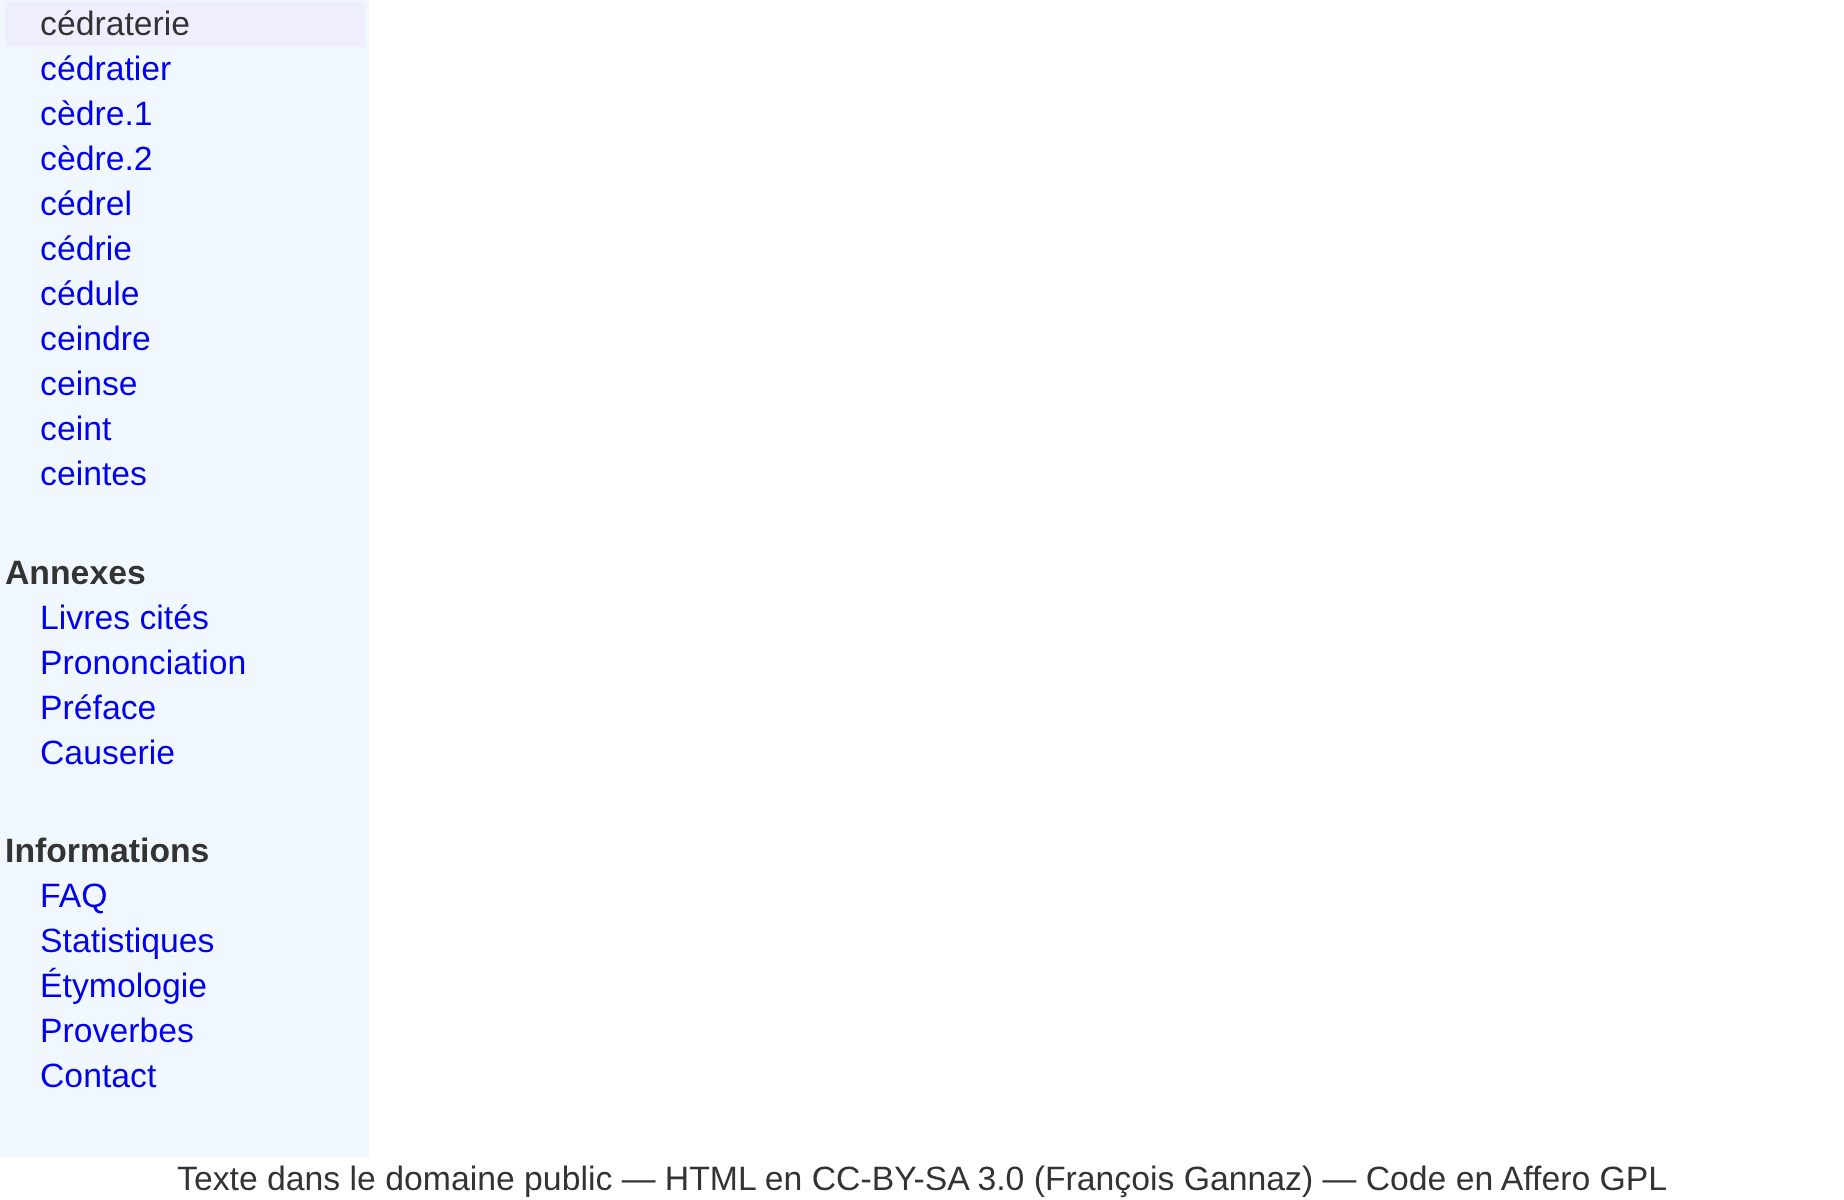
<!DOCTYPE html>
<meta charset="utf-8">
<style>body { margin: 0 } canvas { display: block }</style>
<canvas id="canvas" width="1844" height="1200"></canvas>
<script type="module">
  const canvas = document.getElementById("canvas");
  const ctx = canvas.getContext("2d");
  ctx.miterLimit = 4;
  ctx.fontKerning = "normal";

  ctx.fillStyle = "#ffffff";
  ctx.fillRect(0, 0, 1844, 1200);
  ctx.fillStyle = "#f0f7ff";
  ctx.fillRect(0, 0, 369, 1157);
  ctx.fillStyle = "#eeeeff";
  ctx.fillRect(5, 2, 360, 45);
  ctx.font = "33.75px Liberation Sans";
  ctx.fillStyle = "#333333";
  ctx.fillText("cédraterie", 40, 35);
  ctx.fillStyle = "#0000ee";
  ctx.fillText("cédratier", 40, 80);
  ctx.fillText("cèdre.1", 40, 125);
  ctx.fillText("cèdre.2", 40, 170);
  ctx.fillText("cédrel", 40, 215);
  ctx.fillText("cédrie", 40, 260);
  ctx.fillText("cédule", 40, 305);
  ctx.fillText("ceindre", 40, 350);
  ctx.fillText("ceinse", 40, 395);
  ctx.fillText("ceint", 40, 440);
  ctx.fillText("ceintes", 40, 485);
  ctx.font = "bold 33.75px Liberation Sans";
  ctx.fillStyle = "#333333";
  ctx.fillText("Annexes", 5, 584);
  ctx.font = "33.75px Liberation Sans";
  ctx.fillStyle = "#0000ee";
  ctx.fillText("Livres cités", 40, 629);
  ctx.fillText("Prononciation", 40, 674);
  ctx.fillText("Préface", 40, 719);
  ctx.fillText("Causerie", 40, 764);
  ctx.font = "bold 33.75px Liberation Sans";
  ctx.fillStyle = "#333333";
  ctx.fillText("Informations", 5, 862);
  ctx.font = "33.75px Liberation Sans";
  ctx.fillStyle = "#0000ee";
  ctx.fillText("FAQ", 40, 907);
  ctx.fillText("Statistiques", 40, 952);
  ctx.fillText("Étymologie", 40, 997);
  ctx.fillText("Proverbes", 40, 1042);
  ctx.fillText("Contact", 40, 1087);
  ctx.fillStyle = "#333333";
  ctx.fillText("Texte dans le domaine public — HTML en CC-BY-SA 3.0 (François Gannaz) — Code en Affero GPL", 177, 1190);
</script>
